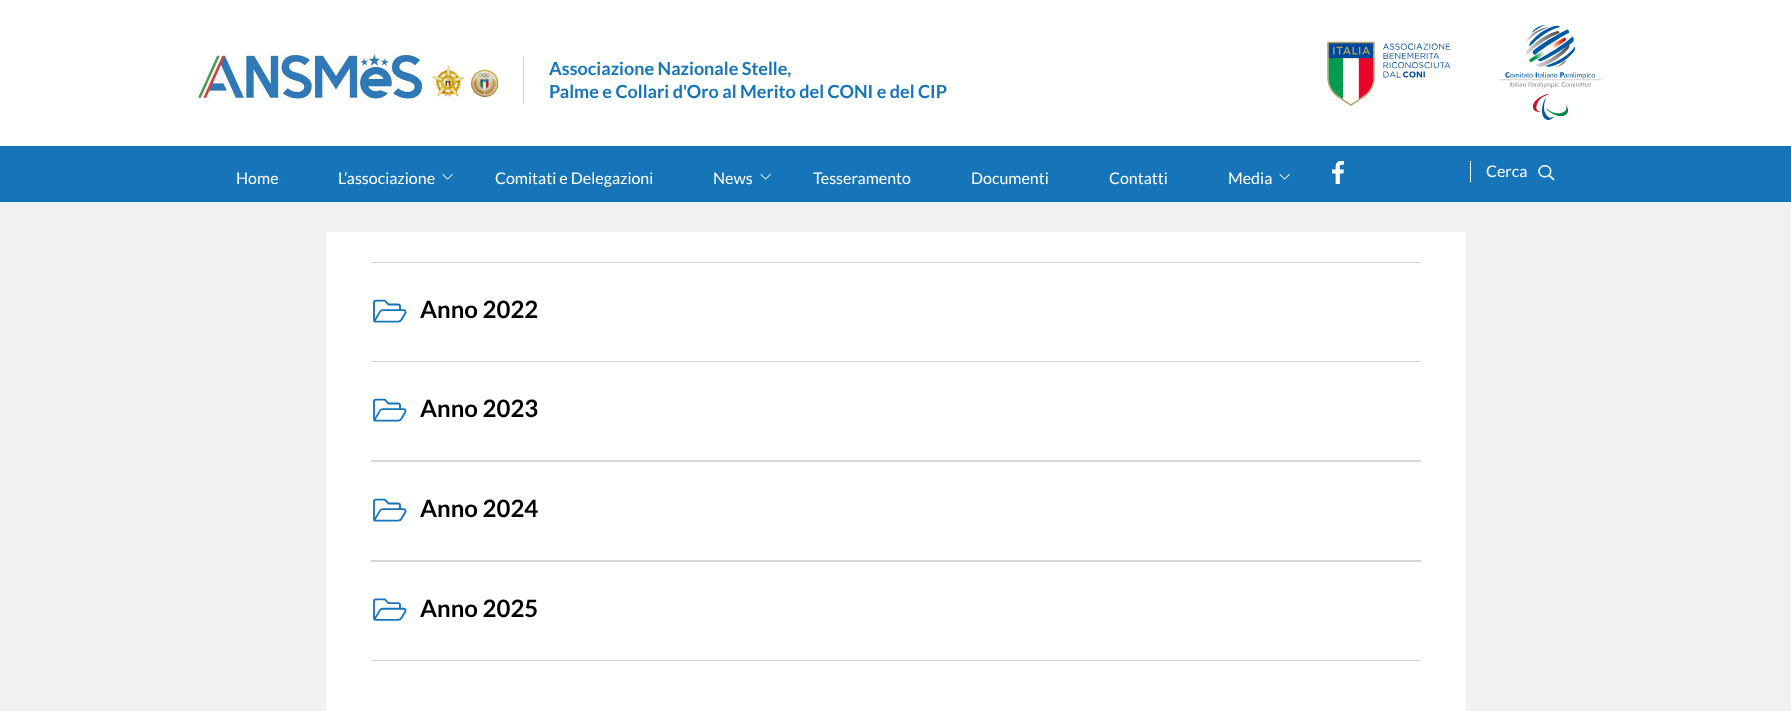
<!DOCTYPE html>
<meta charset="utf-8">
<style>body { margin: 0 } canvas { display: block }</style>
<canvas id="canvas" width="1791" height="711"></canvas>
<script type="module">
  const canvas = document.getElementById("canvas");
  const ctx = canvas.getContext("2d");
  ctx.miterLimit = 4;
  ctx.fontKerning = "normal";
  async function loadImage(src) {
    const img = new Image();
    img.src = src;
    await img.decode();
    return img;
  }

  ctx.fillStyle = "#f0f1f2";
  ctx.fillRect(0, 0, 1791, 711);
  ctx.fillStyle = "#ffffff";
  ctx.fillRect(0, 0, 1791, 146);
  ctx.drawImage(await loadImage("img1.png"), 196, 53, 303, 49);
  ctx.fillStyle = "#d6d7d9";
  ctx.fillRect(523, 57, 1, 47);
  ctx.font = "bold 18px Lato";
  ctx.fillStyle = "#1675b9";
  ctx.fillText("Associazione Nazionale Stelle,", 549, 75);
  ctx.fillText("Palme e Collari d'Oro al Merito del CONI e del CIP", 549, 98);
  ctx.drawImage(await loadImage("img2.png"), 1327, 41, 124, 65);
  ctx.drawImage(await loadImage("img3.png"), 1499, 25, 102, 95);
  ctx.fillRect(0, 146, 1791, 56);
  ctx.font = "16px Lato";
  ctx.fillStyle = "#ffffff";
  ctx.fillText("Home", 236, 184);
  ctx.fillText("L’associazione", 338, 184);
  ctx.drawImage(await loadImage("img4.png"), 442, 174, 11, 6);
  ctx.fillText("Comitati e Delegazioni", 495, 184);
  ctx.fillText("News", 713, 184);
  ctx.drawImage(await loadImage("img5.png"), 760, 174, 11, 6);
  ctx.fillText("Tesseramento", 813, 184);
  ctx.fillText("Documenti", 971, 184);
  ctx.fillText("Contatti", 1109, 184);
  ctx.fillText("Media", 1228, 184);
  ctx.drawImage(await loadImage("img4.png"), 1279, 174, 11, 6);
  ctx.drawImage(await loadImage("img6.png"), 1332, 161, 12, 23);
  ctx.fillRect(1470, 161, 1, 21);
  ctx.fillText("Cerca", 1486, 177);
  ctx.drawImage(await loadImage("img7.png"), 1538, 165, 17, 16);
  ctx.fillRect(326, 232, 1140, 479);
  ctx.fillStyle = "#d6d7d9";
  ctx.fillRect(371, 262, 1050, 1);
  ctx.drawImage(await loadImage("img8.png"), 373, 299, 34, 24);
  ctx.font = "bold 24px Lato";
  ctx.fillStyle = "#000000";
  ctx.fillText("Anno 2022", 420, 318);
  ctx.fillStyle = "#d6d7d9";
  ctx.fillRect(371, 361, 1050, 1);
  ctx.fillRect(371, 460, 1050, 2);
  ctx.drawImage(await loadImage("img8.png"), 373, 398, 34, 24);
  ctx.fillStyle = "#000000";
  ctx.fillText("Anno 2023", 420, 417);
  ctx.fillStyle = "#d6d7d9";
  ctx.fillRect(371, 560, 1050, 2);
  ctx.drawImage(await loadImage("img9.png"), 373, 498, 34, 24);
  ctx.fillStyle = "#000000";
  ctx.fillText("Anno 2024", 420, 517);
  ctx.fillStyle = "#d6d7d9";
  ctx.fillRect(371, 660, 1050, 1);
  ctx.drawImage(await loadImage("img10.png"), 373, 598, 34, 23);
  ctx.fillStyle = "#000000";
  ctx.fillText("Anno 2025", 420, 617);
</script>
